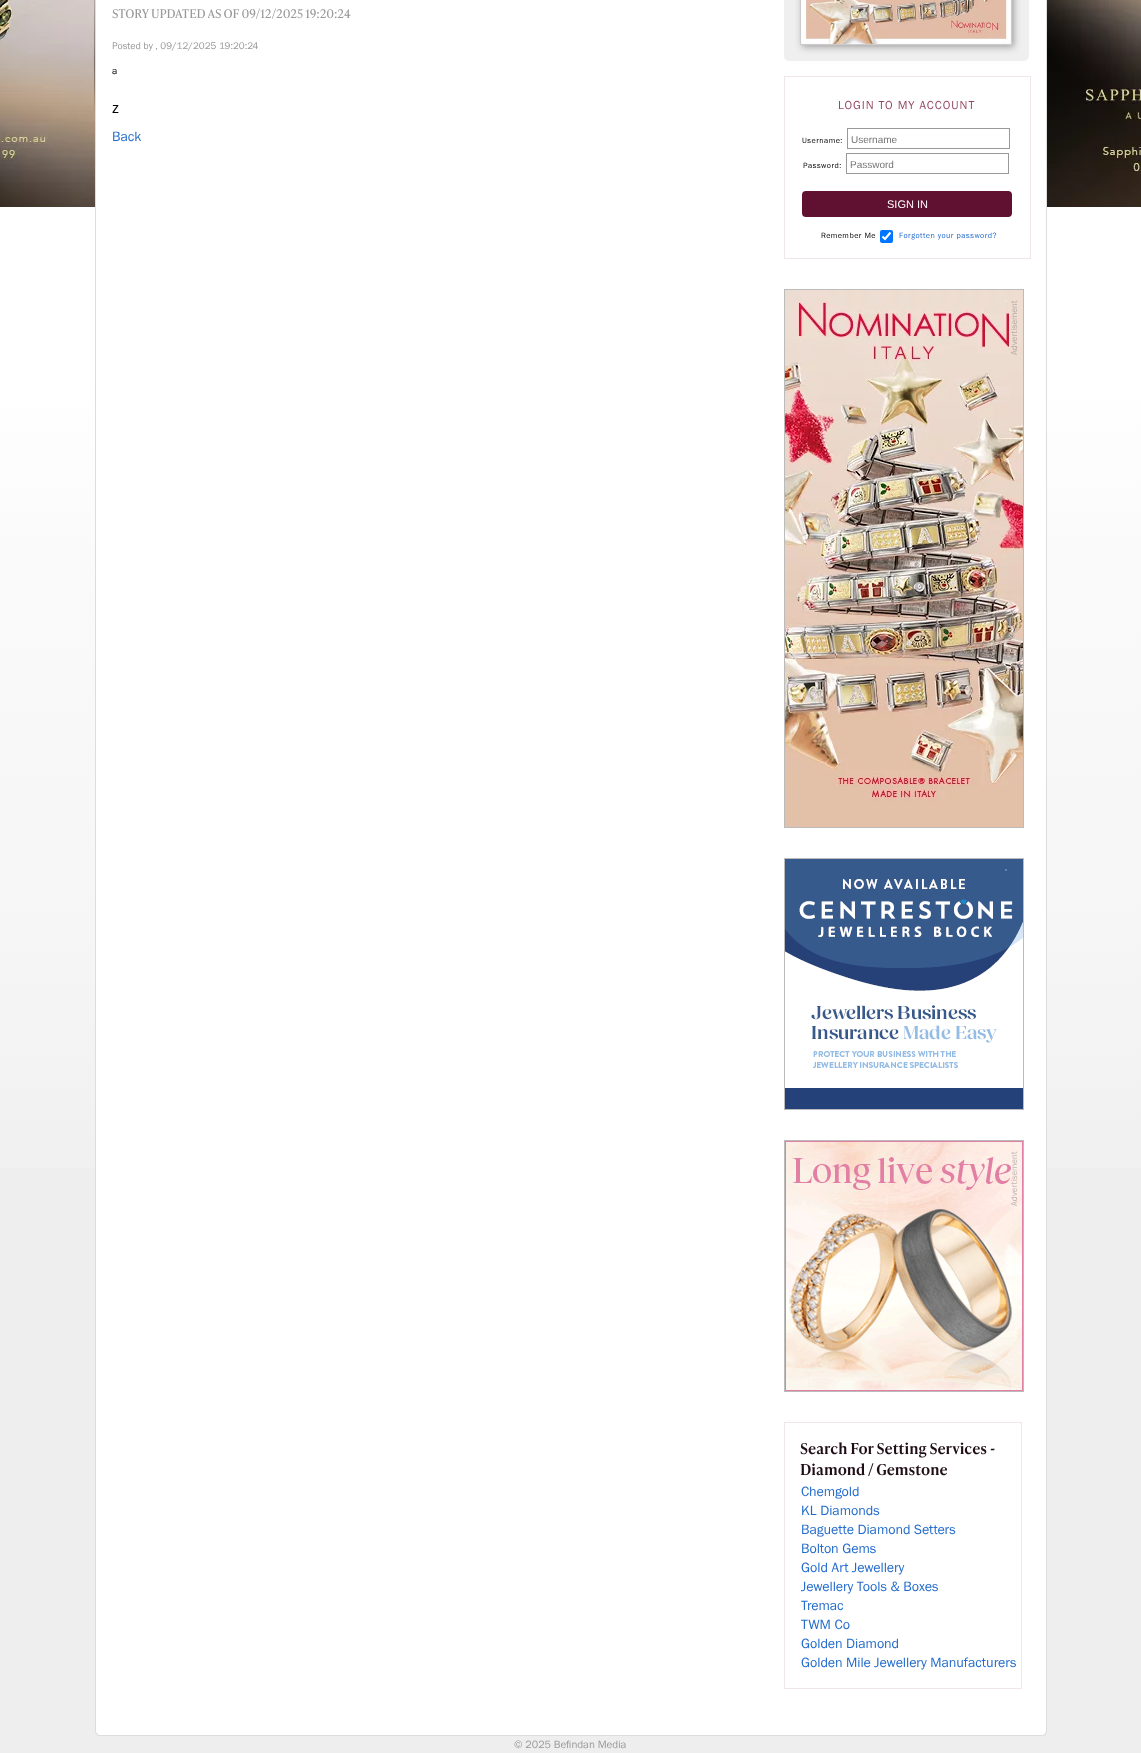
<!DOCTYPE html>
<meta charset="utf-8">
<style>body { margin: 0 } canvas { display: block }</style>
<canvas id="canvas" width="1141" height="1753"></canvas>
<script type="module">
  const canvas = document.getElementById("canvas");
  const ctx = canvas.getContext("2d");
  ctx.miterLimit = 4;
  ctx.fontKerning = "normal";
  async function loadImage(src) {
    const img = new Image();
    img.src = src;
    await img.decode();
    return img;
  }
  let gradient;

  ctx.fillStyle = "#eeeeee";
  ctx.fillRect(0, 0, 1141, 1753);
  gradient = ctx.createLinearGradient(570, -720, 571, 1280);
  gradient.addColorStop(0, "#ffffff");
  gradient.addColorStop(0.55, "#ffffff");
  gradient.addColorStop(0.64, "#fafafa");
  gradient.addColorStop(0.73, "#f8f8f8");
  gradient.addColorStop(0.82, "#f6f6f6");
  gradient.addColorStop(0.91, "#f2f2f2");
  gradient.addColorStop(1, "#eeeeee");
  ctx.fillStyle = gradient;
  ctx.fillRect(0, 207, 1141, 961);
  ctx.fillStyle = "#ffffff";
  ctx.beginPath();
  ctx.roundRect(95, -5, 952, 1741, 5);
  ctx.fill();
  ctx.fillStyle = "#dddddd";
  ctx.beginPath();
  ctx.moveTo(100, -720);
  ctx.lineTo(1042, -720);
  ctx.bezierCurveTo(1045, -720, 1047, -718, 1047, -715);
  ctx.lineTo(1047, 1731);
  ctx.bezierCurveTo(1047, 1734, 1045, 1736, 1042, 1736);
  ctx.lineTo(100, 1736);
  ctx.bezierCurveTo(97, 1736, 95, 1734, 95, 1731);
  ctx.lineTo(95, -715);
  ctx.bezierCurveTo(95, -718, 97, -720, 100, -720);
  ctx.closePath();
  ctx.moveTo(100, -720);
  ctx.lineTo(1042, -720);
  ctx.bezierCurveTo(1044, -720, 1046, -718, 1046, -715);
  ctx.lineTo(1046, 1731);
  ctx.bezierCurveTo(1046, 1733, 1044, 1735, 1042, 1735);
  ctx.lineTo(100, 1735);
  ctx.bezierCurveTo(98, 1735, 96, 1733, 96, 1731);
  ctx.lineTo(96, -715);
  ctx.bezierCurveTo(96, -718, 98, -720, 100, -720);
  ctx.closePath();
  ctx.fill("evenodd");
  ctx.drawImage(await loadImage("img1.png"), 0, 0, 95, 207);
  ctx.drawImage(await loadImage("img2.png"), 1047, 0, 94, 207);
  ctx.letterSpacing = "-0.1px";
  ctx.font = "12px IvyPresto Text";
  ctx.fillStyle = "#999999";
  ctx.fillText("STORY UPDATED AS OF 09/12/2025 19:20:24", 112, 18);
  ctx.letterSpacing = "0px";
  ctx.font = "10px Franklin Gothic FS";
  ctx.fillText("Posted by , 09/12/2025 19:20:24", 112, 49);
  ctx.fillStyle = "#000000";
  ctx.fillText("a", 112, 74);
  ctx.font = "16px Franklin Gothic FS";
  ctx.fillText("z", 112, 113);
  ctx.font = "14px Franklin Gothic FS";
  ctx.fillStyle = "#226bcc";
  ctx.fillText("Back", 112, 141);
  ctx.fillStyle = "#efefef";
  ctx.beginPath();
  ctx.roundRect(784, -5, 245, 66, 5);
  ctx.fill();
  ctx.fillStyle = "rgba(42, 42, 42, 0.4)";
  ctx.filter = "blur(3.5px)";
  ctx.beginPath();
  ctx.rect(802, -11, 212, 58);
  ctx.fill();
  ctx.filter = "none";
  ctx.strokeStyle = "#cccccc";
  ctx.strokeRect(800.5, -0.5, 211, 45);
  ctx.drawImage(await loadImage("img3.png"), 801, 0, 210, 44);
  ctx.strokeStyle = "#f0e6ea";
  ctx.strokeRect(784.5, 76.5, 246, 182);
  ctx.letterSpacing = "1px";
  ctx.font = "12px Franklin Gothic FS";
  ctx.fillStyle = "#944967";
  ctx.fillText("LOGIN TO MY ACCOUNT", 838, 109);
  ctx.letterSpacing = "0.5px";
  ctx.font = "8px Franklin Gothic FS";
  ctx.fillStyle = "#000000";
  ctx.fillText("Username:", 802, 143);
  ctx.strokeStyle = "#999999";
  ctx.strokeRect(847.5, 128.5, 162, 20);
  ctx.letterSpacing = "0px";
  ctx.font = "10px Liberation Sans";
  ctx.fillStyle = "#757575";
  ctx.fillText("Username", 851, 143);
  ctx.letterSpacing = "0.5px";
  ctx.font = "8px Franklin Gothic FS";
  ctx.fillStyle = "#000000";
  ctx.fillText("Password:", 803, 168);
  ctx.strokeRect(846.5, 153.5, 162, 20);
  ctx.letterSpacing = "0px";
  ctx.font = "10px Liberation Sans";
  ctx.fillStyle = "#757575";
  ctx.fillText("Password", 850, 168);
  ctx.fillStyle = "#601131";
  ctx.beginPath();
  ctx.roundRect(803, 192, 208, 24, 3);
  ctx.fill();
  ctx.strokeStyle = "#601131";
  ctx.lineWidth = 2;
  ctx.stroke();
  ctx.font = "11px Liberation Sans";
  ctx.fillStyle = "#ffffff";
  ctx.fillText("SIGN IN", 887, 208);
  ctx.letterSpacing = "0.5px";
  ctx.font = "8px Franklin Gothic FS";
  ctx.fillStyle = "#000000";
  ctx.fillText("Remember Me", 821, 238);
  ctx.fillStyle = "#0075ff";
  ctx.beginPath();
  ctx.roundRect(880, 230, 13, 13, 2);
  ctx.fill();
  ctx.beginPath();
  ctx.moveTo(882.5, 236.5);
  ctx.lineTo(885, 239);
  ctx.lineTo(890.5, 232.5);
  ctx.strokeStyle = "#ffffff";
  ctx.lineWidth = 2.1;
  ctx.stroke();
  ctx.fillStyle = "#226bcc";
  ctx.fillText("Forgotten your password?", 899, 238);
  ctx.strokeStyle = "#bbbbbb";
  ctx.lineWidth = 1;
  ctx.strokeRect(784.5, 289.5, 239, 538);
  ctx.drawImage(await loadImage("img4.png"), 785, 290, 238, 537);
  ctx.drawImage(await loadImage("img5.png"), 1005, 300, 2, 2);
  ctx.letterSpacing = "0px";
  ctx.font = "9px Franklin Gothic FS";
  ctx.fillStyle = "#b7aca5";
  ctx.save();
  ctx.translate(1017, 355);
  ctx.rotate(-90 * Math.PI / 180);
  ctx.fillText("Advertisement", 0, 0);
  ctx.restore();
  ctx.strokeRect(784.5, 858.5, 239, 251);
  ctx.drawImage(await loadImage("img6.png"), 785, 859, 238, 250);
  ctx.drawImage(await loadImage("img7.png"), 1005, 869, 2, 2);
  ctx.strokeRect(784.5, 1140.5, 239, 251);
  ctx.drawImage(await loadImage("img8.png"), 785, 1141, 238, 250);
  ctx.drawImage(await loadImage("img9.png"), 1005, 1151, 2, 2);
  ctx.fillStyle = "#c1b7b3";
  ctx.save();
  ctx.translate(1017, 1206);
  ctx.rotate(-90 * Math.PI / 180);
  ctx.fillText("Advertisement", 0, 0);
  ctx.restore();
  ctx.strokeStyle = "#f0e6ea";
  ctx.strokeRect(784.5, 1422.5, 237, 266);
  ctx.font = "600 15px IvyPresto Text";
  ctx.fillStyle = "#200e17";
  ctx.fillText("Search For Setting Services -", 800, 1454);
  ctx.fillText("Diamond / Gemstone", 800, 1475);
  ctx.font = "14px Franklin Gothic FS";
  ctx.fillStyle = "#226bcc";
  ctx.fillText("Chemgold", 801, 1496);
  ctx.fillText("KL Diamonds", 801, 1515);
  ctx.fillText("Baguette Diamond Setters", 801, 1534);
  ctx.fillText("Bolton Gems", 801, 1553);
  ctx.fillText("Gold Art Jewellery", 801, 1572);
  ctx.fillText("Jewellery Tools & Boxes", 801, 1591);
  ctx.fillText("Tremac", 801, 1610);
  ctx.fillText("TWM Co", 801, 1629);
  ctx.fillText("Golden Diamond", 801, 1648);
  ctx.fillText("Golden Mile Jewellery Manufacturers", 801, 1667);
  ctx.font = "11px Franklin Gothic FS";
  ctx.fillStyle = "#999999";
  ctx.fillText("© 2025 Befindan Media", 514, 1748);
</script>
